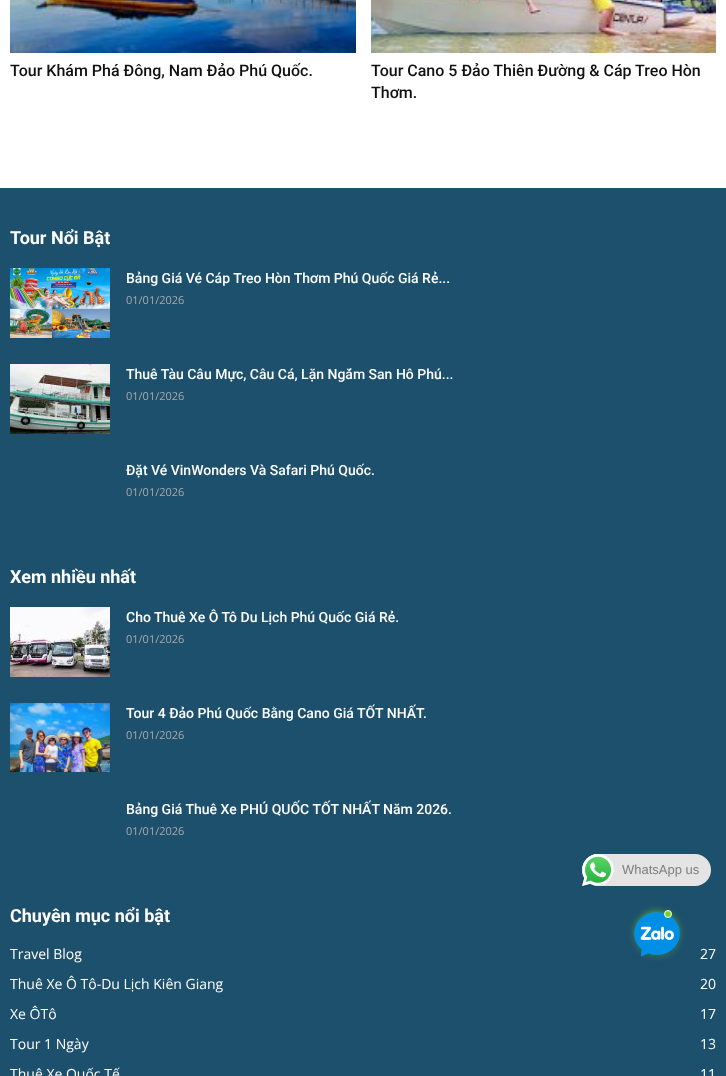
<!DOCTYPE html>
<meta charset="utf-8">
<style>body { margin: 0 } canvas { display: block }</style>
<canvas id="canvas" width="726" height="1076"></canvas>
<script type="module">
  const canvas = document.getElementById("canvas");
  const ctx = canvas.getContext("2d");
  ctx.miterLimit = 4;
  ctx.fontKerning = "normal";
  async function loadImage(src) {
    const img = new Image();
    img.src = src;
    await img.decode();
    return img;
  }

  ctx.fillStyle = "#ffffff";
  ctx.fillRect(0, 0, 726, 1076);
  ctx.drawImage(await loadImage("img1.png"), 10, 0, 346, 53);
  ctx.font = "500 16px Roboto";
  ctx.fillStyle = "#111111";
  ctx.fillText("Tour Khám Phá Đông, Nam Đảo Phú Quốc.", 10, 76);
  ctx.drawImage(await loadImage("img2.png"), 371, 0, 345, 53);
  ctx.fillText("Tour Cano 5 Đảo Thiên Đường & Cáp Treo Hòn", 371, 76);
  ctx.fillText("Thơm.", 371, 98);
  ctx.fillStyle = "#1d506d";
  ctx.fillRect(0, 188, 726, 888);
  ctx.font = "bold 18px Roboto";
  ctx.fillStyle = "#ffffff";
  ctx.fillText("Tour Nổi Bật", 10, 244);
  ctx.drawImage(await loadImage("img3.png"), 10, 268, 100, 70);
  ctx.font = "500 14px Roboto";
  ctx.fillText("Bảng Giá Vé Cáp Treo Hòn Thơm Phú Quốc Giá Rẻ...", 126, 283);
  ctx.font = "11px Open Sans";
  ctx.fillStyle = "#aaaaaa";
  ctx.fillText("01/01/2026", 126, 304);
  ctx.drawImage(await loadImage("img4.png"), 10, 364, 100, 70);
  ctx.font = "500 14px Roboto";
  ctx.fillStyle = "#ffffff";
  ctx.fillText("Thuê Tàu Câu Mực, Câu Cá, Lặn Ngắm San Hô Phú...", 126, 379);
  ctx.font = "11px Open Sans";
  ctx.fillStyle = "#aaaaaa";
  ctx.fillText("01/01/2026", 126, 400);
  ctx.font = "500 14px Roboto";
  ctx.fillStyle = "#ffffff";
  ctx.fillText("Đặt Vé VinWonders Và Safari Phú Quốc.", 126, 475);
  ctx.font = "11px Open Sans";
  ctx.fillStyle = "#aaaaaa";
  ctx.fillText("01/01/2026", 126, 496);
  ctx.font = "bold 18px Roboto";
  ctx.fillStyle = "#ffffff";
  ctx.fillText("Xem nhiều nhất", 10, 583);
  ctx.drawImage(await loadImage("img5.png"), 10, 607, 100, 70);
  ctx.font = "500 14px Roboto";
  ctx.fillText("Cho Thuê Xe Ô Tô Du Lịch Phú Quốc Giá Rẻ.", 126, 622);
  ctx.font = "11px Open Sans";
  ctx.fillStyle = "#aaaaaa";
  ctx.fillText("01/01/2026", 126, 643);
  ctx.drawImage(await loadImage("img6.png"), 10, 703, 100, 69);
  ctx.font = "500 14px Roboto";
  ctx.fillStyle = "#ffffff";
  ctx.fillText("Tour 4 Đảo Phú Quốc Bằng Cano Giá TỐT NHẤT.", 126, 718);
  ctx.font = "11px Open Sans";
  ctx.fillStyle = "#aaaaaa";
  ctx.fillText("01/01/2026", 126, 739);
  ctx.font = "500 14px Roboto";
  ctx.fillStyle = "#ffffff";
  ctx.fillText("Bảng Giá Thuê Xe PHÚ QUỐC TỐT NHẤT Năm 2026.", 126, 814);
  ctx.font = "11px Open Sans";
  ctx.fillStyle = "#aaaaaa";
  ctx.fillText("01/01/2026", 126, 835);
  ctx.font = "bold 18px Roboto";
  ctx.fillStyle = "#ffffff";
  ctx.fillText("Chuyên mục nổi bật", 10, 922);
  ctx.font = "14px Open Sans";
  ctx.fillText("Travel Blog", 10, 959);
  ctx.fillText("27", 700, 959);
  ctx.fillText("Thuê Xe Ô Tô-Du Lịch Kiên Giang", 10, 989);
  ctx.fillText("20", 700, 989);
  ctx.fillText("Xe ÔTô", 10, 1019);
  ctx.fillText("17", 700, 1019);
  ctx.fillText("Tour 1 Ngày", 10, 1049);
  ctx.fillText("13", 700, 1049);
  ctx.fillText("Thuê Xe Quốc Tế", 10, 1079);
  ctx.fillText("11", 700, 1079);
  ctx.fillStyle = "#e4e4e4";
  ctx.beginPath();
  ctx.roundRect(582, 854, 129, 32, 16);
  ctx.fill();
  ctx.drawImage(await loadImage("img7.png"), 582, 854, 32, 32);
  ctx.font = "13px Liberation Sans";
  ctx.fillStyle = "#7f7d7d";
  ctx.fillText("WhatsApp us", 622, 874);
  ctx.fillStyle = "#7ed321";
  ctx.filter = "blur(4px)";
  ctx.beginPath();
  ctx.roundRect(637, 913, 40, 40, 20);
  ctx.fill();
  ctx.filter = "none";
  ctx.drawImage(await loadImage("img8.png"), 634, 912, 46, 46);
  ctx.beginPath();
  ctx.arc(668, 914, 3.5, 0, Math.PI * 2);
  ctx.fill();
  ctx.strokeStyle = "#ffffff";
  ctx.stroke();
</script>
